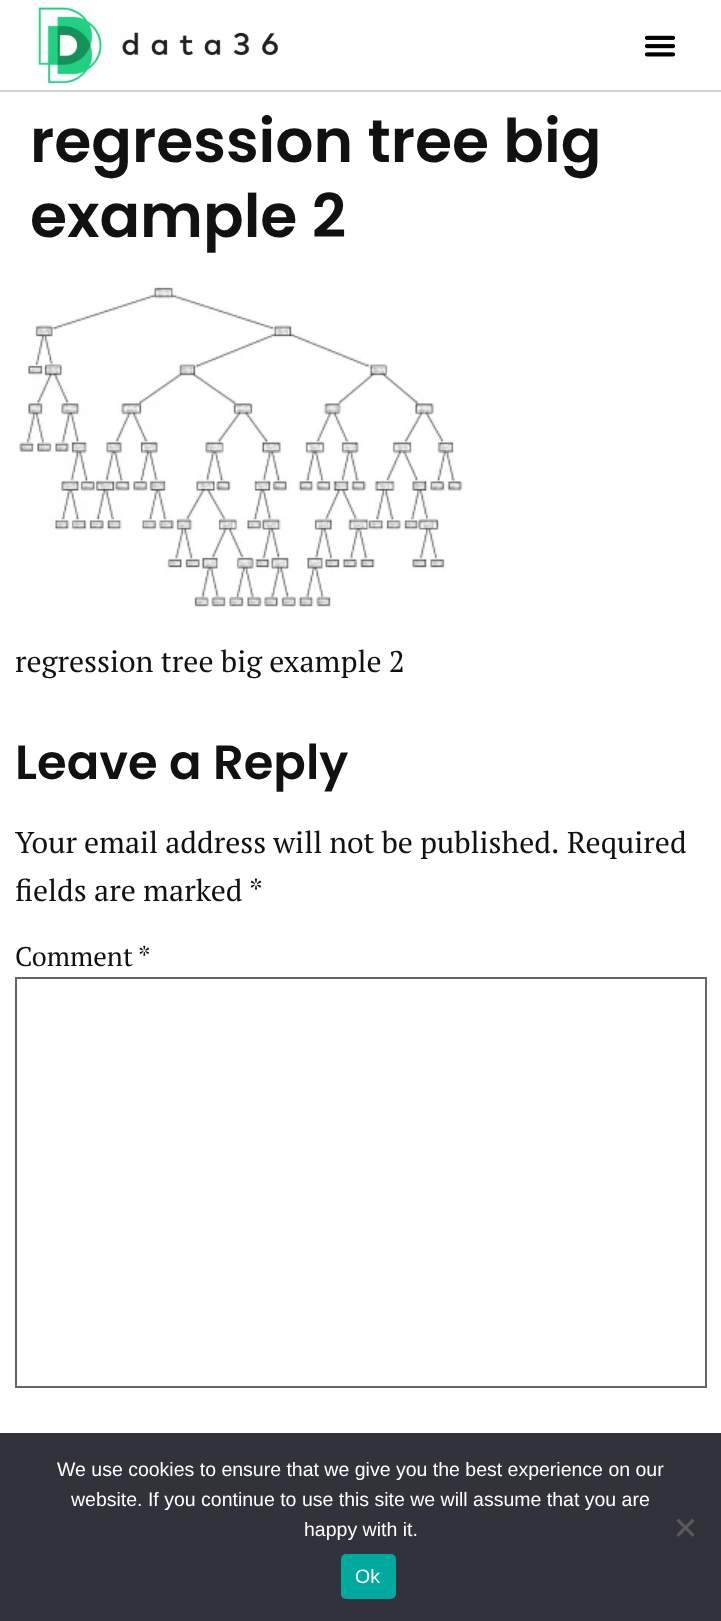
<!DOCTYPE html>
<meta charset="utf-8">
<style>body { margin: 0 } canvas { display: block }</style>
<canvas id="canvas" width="721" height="1621"></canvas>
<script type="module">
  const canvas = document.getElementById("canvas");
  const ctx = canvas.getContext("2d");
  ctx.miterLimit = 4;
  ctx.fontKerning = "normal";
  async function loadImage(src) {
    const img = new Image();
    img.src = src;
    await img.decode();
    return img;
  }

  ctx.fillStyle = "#ffffff";
  ctx.fillRect(0, 0, 721, 1621);
  ctx.fillStyle = "#d2d3da";
  ctx.fillRect(0, 90, 721, 2);
  ctx.drawImage(await loadImage("img1.png"), 36, 6, 243, 80);
  ctx.drawImage(await loadImage("img2.png"), 644, 35, 32, 22);
  ctx.font = "600 60px Poppins";
  ctx.fillStyle = "#111111";
  ctx.fillText("regression tree big", 30, 162);
  ctx.fillText("example 2", 30, 237);
  ctx.drawImage(await loadImage("img3.png"), 15, 284, 448, 324);
  ctx.font = "30px PT Serif";
  ctx.fillText("regression tree big example 2", 15, 672);
  ctx.font = "600 48px Poppins";
  ctx.fillText("Leave a Reply", 15, 779);
  ctx.wordSpacing = "-0.25px";
  ctx.font = "30px PT Serif";
  ctx.fillText("Your email address will not be published.", 15, 853);
  ctx.wordSpacing = "0px";
  ctx.fillText("Required", 567, 853);
  ctx.fillText("fields are marked", 15, 901);
  ctx.fillText("*", 249, 901);
  ctx.font = "27px PT Serif";
  ctx.fillText("Comment", 15, 966);
  ctx.fillText("*", 138, 966);
  ctx.strokeStyle = "#666666";
  ctx.lineWidth = 2;
  ctx.strokeRect(16, 978, 690, 409);
  ctx.fillStyle = "#32323a";
  ctx.fillRect(0, 1433, 721, 188);
  ctx.font = "19.5px Liberation Sans";
  ctx.fillStyle = "#ffffff";
  ctx.fillText("We use cookies to ensure that we give you the best experience on our", 57, 1476);
  ctx.fillText("website. If you continue to use this site we will assume that you are", 71, 1506);
  ctx.fillText("happy with it.", 304, 1536);
  ctx.fillStyle = "#59595d";
  ctx.beginPath();
  ctx.moveTo(692.5, 1518.5);
  ctx.lineTo(694.5, 1521);
  ctx.lineTo(678.5, 1537);
  ctx.lineTo(676.5, 1534.5);
  ctx.closePath();
  ctx.fill();
  ctx.beginPath();
  ctx.moveTo(676.5, 1521);
  ctx.lineTo(678.5, 1518.5);
  ctx.lineTo(694.5, 1534.5);
  ctx.lineTo(692.5, 1537);
  ctx.closePath();
  ctx.fill();
  ctx.fillStyle = "#00a99d";
  ctx.beginPath();
  ctx.roundRect(341, 1554, 55, 45, 5);
  ctx.fill();
  ctx.fillStyle = "#ffffff";
  ctx.fillText("Ok", 355, 1583);
</script>
